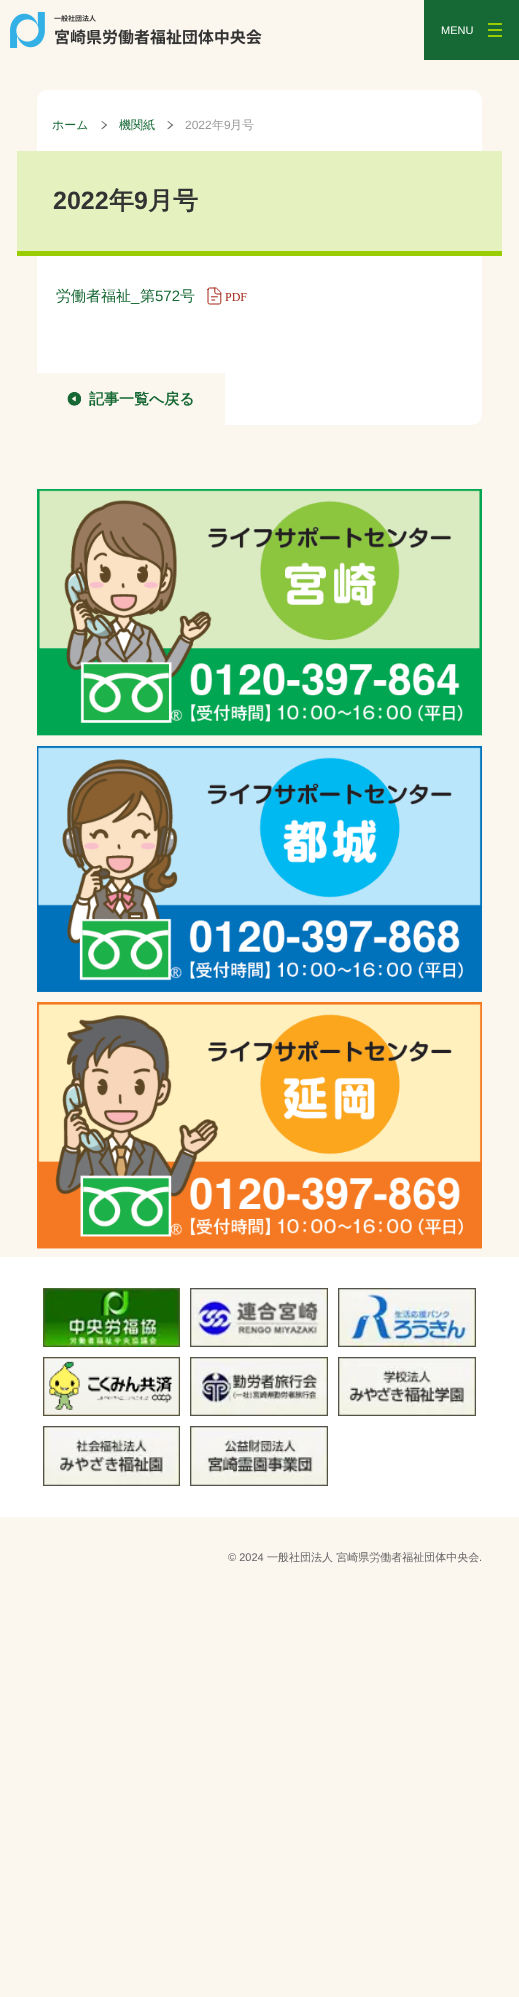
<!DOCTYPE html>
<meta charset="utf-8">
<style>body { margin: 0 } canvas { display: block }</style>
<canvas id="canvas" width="519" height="1997"></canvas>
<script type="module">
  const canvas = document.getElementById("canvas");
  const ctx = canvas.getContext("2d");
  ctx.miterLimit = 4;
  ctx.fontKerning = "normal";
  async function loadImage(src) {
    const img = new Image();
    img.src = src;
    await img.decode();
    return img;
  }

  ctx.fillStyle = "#fbf6ee";
  ctx.fillRect(0, 0, 519, 1997);
  ctx.drawImage(await loadImage("img1.png"), 10, 12, 252, 36);
  ctx.fillStyle = "#166834";
  ctx.fillRect(424, 0, 95, 60);
  ctx.font = "11px Liberation Sans";
  ctx.fillStyle = "#ffffff";
  ctx.fillText("MENU", 441, 34);
  ctx.fillStyle = "#99cc01";
  ctx.fillRect(488, 23, 14, 2);
  ctx.fillRect(488, 29, 14, 2);
  ctx.fillRect(488, 35, 14, 2);
  ctx.fillStyle = "#ffffff";
  ctx.beginPath();
  ctx.roundRect(37, 90, 445, 335, 10);
  ctx.fill();
  ctx.font = "500 12px WenQuanYi Zen Hei";
  ctx.fillStyle = "#166834";
  ctx.fillText("ホーム", 52, 129);
  ctx.fillStyle = "#666666";
  ctx.beginPath();
  ctx.moveTo(102, 121);
  ctx.lineTo(106.5, 124.5);
  ctx.lineTo(107, 125);
  ctx.bezierCurveTo(106.5, 126, 105.5, 125, 105, 124.5);
  ctx.bezierCurveTo(104.5, 124, 101, 121.5, 101.5, 121);
  ctx.closePath();
  ctx.fill();
  ctx.beginPath();
  ctx.moveTo(101.5, 128.5);
  ctx.lineTo(106, 124.5);
  ctx.lineTo(106.5, 124.5);
  ctx.bezierCurveTo(107.5, 125, 106, 126, 106, 126);
  ctx.bezierCurveTo(105.5, 126.5, 102, 130, 101.5, 129);
  ctx.closePath();
  ctx.fill();
  ctx.fillStyle = "#166834";
  ctx.fillText("機関紙", 119, 129);
  ctx.fillStyle = "#666666";
  ctx.beginPath();
  ctx.moveTo(168, 121);
  ctx.lineTo(172.5, 124.5);
  ctx.lineTo(173, 125);
  ctx.bezierCurveTo(172.5, 126, 171.5, 125, 171, 124.5);
  ctx.bezierCurveTo(170.5, 124, 167, 121.5, 167.5, 121);
  ctx.closePath();
  ctx.fill();
  ctx.beginPath();
  ctx.moveTo(167.5, 128.5);
  ctx.lineTo(172, 124.5);
  ctx.lineTo(172.5, 124.5);
  ctx.bezierCurveTo(173.5, 125, 172, 126, 172, 126);
  ctx.bezierCurveTo(171.5, 126.5, 168, 130, 167.5, 129);
  ctx.closePath();
  ctx.fill();
  ctx.font = "12px Liberation Sans";
  ctx.fillStyle = "#999999";
  ctx.fillText("2022", 185, 129);
  ctx.font = "500 12px WenQuanYi Zen Hei";
  ctx.fillText("年", 212, 129);
  ctx.font = "12px Liberation Sans";
  ctx.fillText("9", 224, 129);
  ctx.font = "500 12px WenQuanYi Zen Hei";
  ctx.fillText("月号", 230, 129);
  ctx.fillStyle = "#e5f2bf";
  ctx.fillRect(17, 151, 485, 100);
  ctx.font = "bold 25px Liberation Sans";
  ctx.fillStyle = "#333333";
  ctx.fillText("2022", 53, 209);
  ctx.font = "bold 25px WenQuanYi Zen Hei";
  ctx.fillText("年", 109, 209);
  ctx.font = "bold 25px Liberation Sans";
  ctx.fillText("9", 134, 209);
  ctx.font = "bold 25px WenQuanYi Zen Hei";
  ctx.fillText("月号", 148, 209);
  ctx.fillStyle = "#99cc01";
  ctx.fillRect(17, 251, 485, 5);
  ctx.font = "500 15px WenQuanYi Zen Hei";
  ctx.fillStyle = "#166834";
  ctx.fillText("労働者福祉", 56, 301);
  ctx.fillText("第", 140, 301);
  ctx.font = "15px Liberation Sans";
  ctx.fillText("572", 155, 301);
  ctx.font = "500 15px WenQuanYi Zen Hei";
  ctx.fillText("号", 180, 301);
  ctx.drawImage(await loadImage("img2.png"), 207, 287, 40, 18);
  ctx.font = "15px Liberation Sans";
  ctx.fillText("_", 131, 301);
  ctx.fillStyle = "#fbf6ee";
  ctx.beginPath();
  ctx.roundRect(37, 373, 188, 52, [0, 0, 0, 10]);
  ctx.fill();
  ctx.drawImage(await loadImage("img3.png"), 67, 392, 14, 14);
  ctx.font = "bold 15px WenQuanYi Zen Hei";
  ctx.fillStyle = "#166834";
  ctx.fillText("記事一覧へ戻る", 89, 404);
  ctx.drawImage(await loadImage("img4.png"), 37, 489, 445, 247);
  ctx.drawImage(await loadImage("img5.png"), 37, 746, 445, 246);
  ctx.drawImage(await loadImage("img6.png"), 37, 1002, 445, 247);
  ctx.fillStyle = "#ffffff";
  ctx.fillRect(0, 1257, 519, 260);
  ctx.drawImage(await loadImage("img7.png"), 43, 1288, 137, 59);
  ctx.drawImage(await loadImage("img8.png"), 190, 1288, 138, 59);
  ctx.drawImage(await loadImage("img9.png"), 338, 1288, 138, 59);
  ctx.drawImage(await loadImage("img10.png"), 43, 1357, 137, 59);
  ctx.drawImage(await loadImage("img11.png"), 190, 1357, 138, 59);
  ctx.drawImage(await loadImage("img12.png"), 338, 1357, 138, 59);
  ctx.drawImage(await loadImage("img13.png"), 43, 1426, 137, 60);
  ctx.drawImage(await loadImage("img14.png"), 190, 1426, 138, 60);
  ctx.font = "11px Liberation Sans";
  ctx.fillStyle = "#666666";
  ctx.fillText("©︎ 2024", 228, 1561);
  ctx.font = "500 11px WenQuanYi Zen Hei";
  ctx.fillText("一般社団法人 宮崎県労働者福祉団体中央会", 267, 1561);
  ctx.font = "11px Liberation Sans";
  ctx.fillText(".", 479, 1561);
</script>
